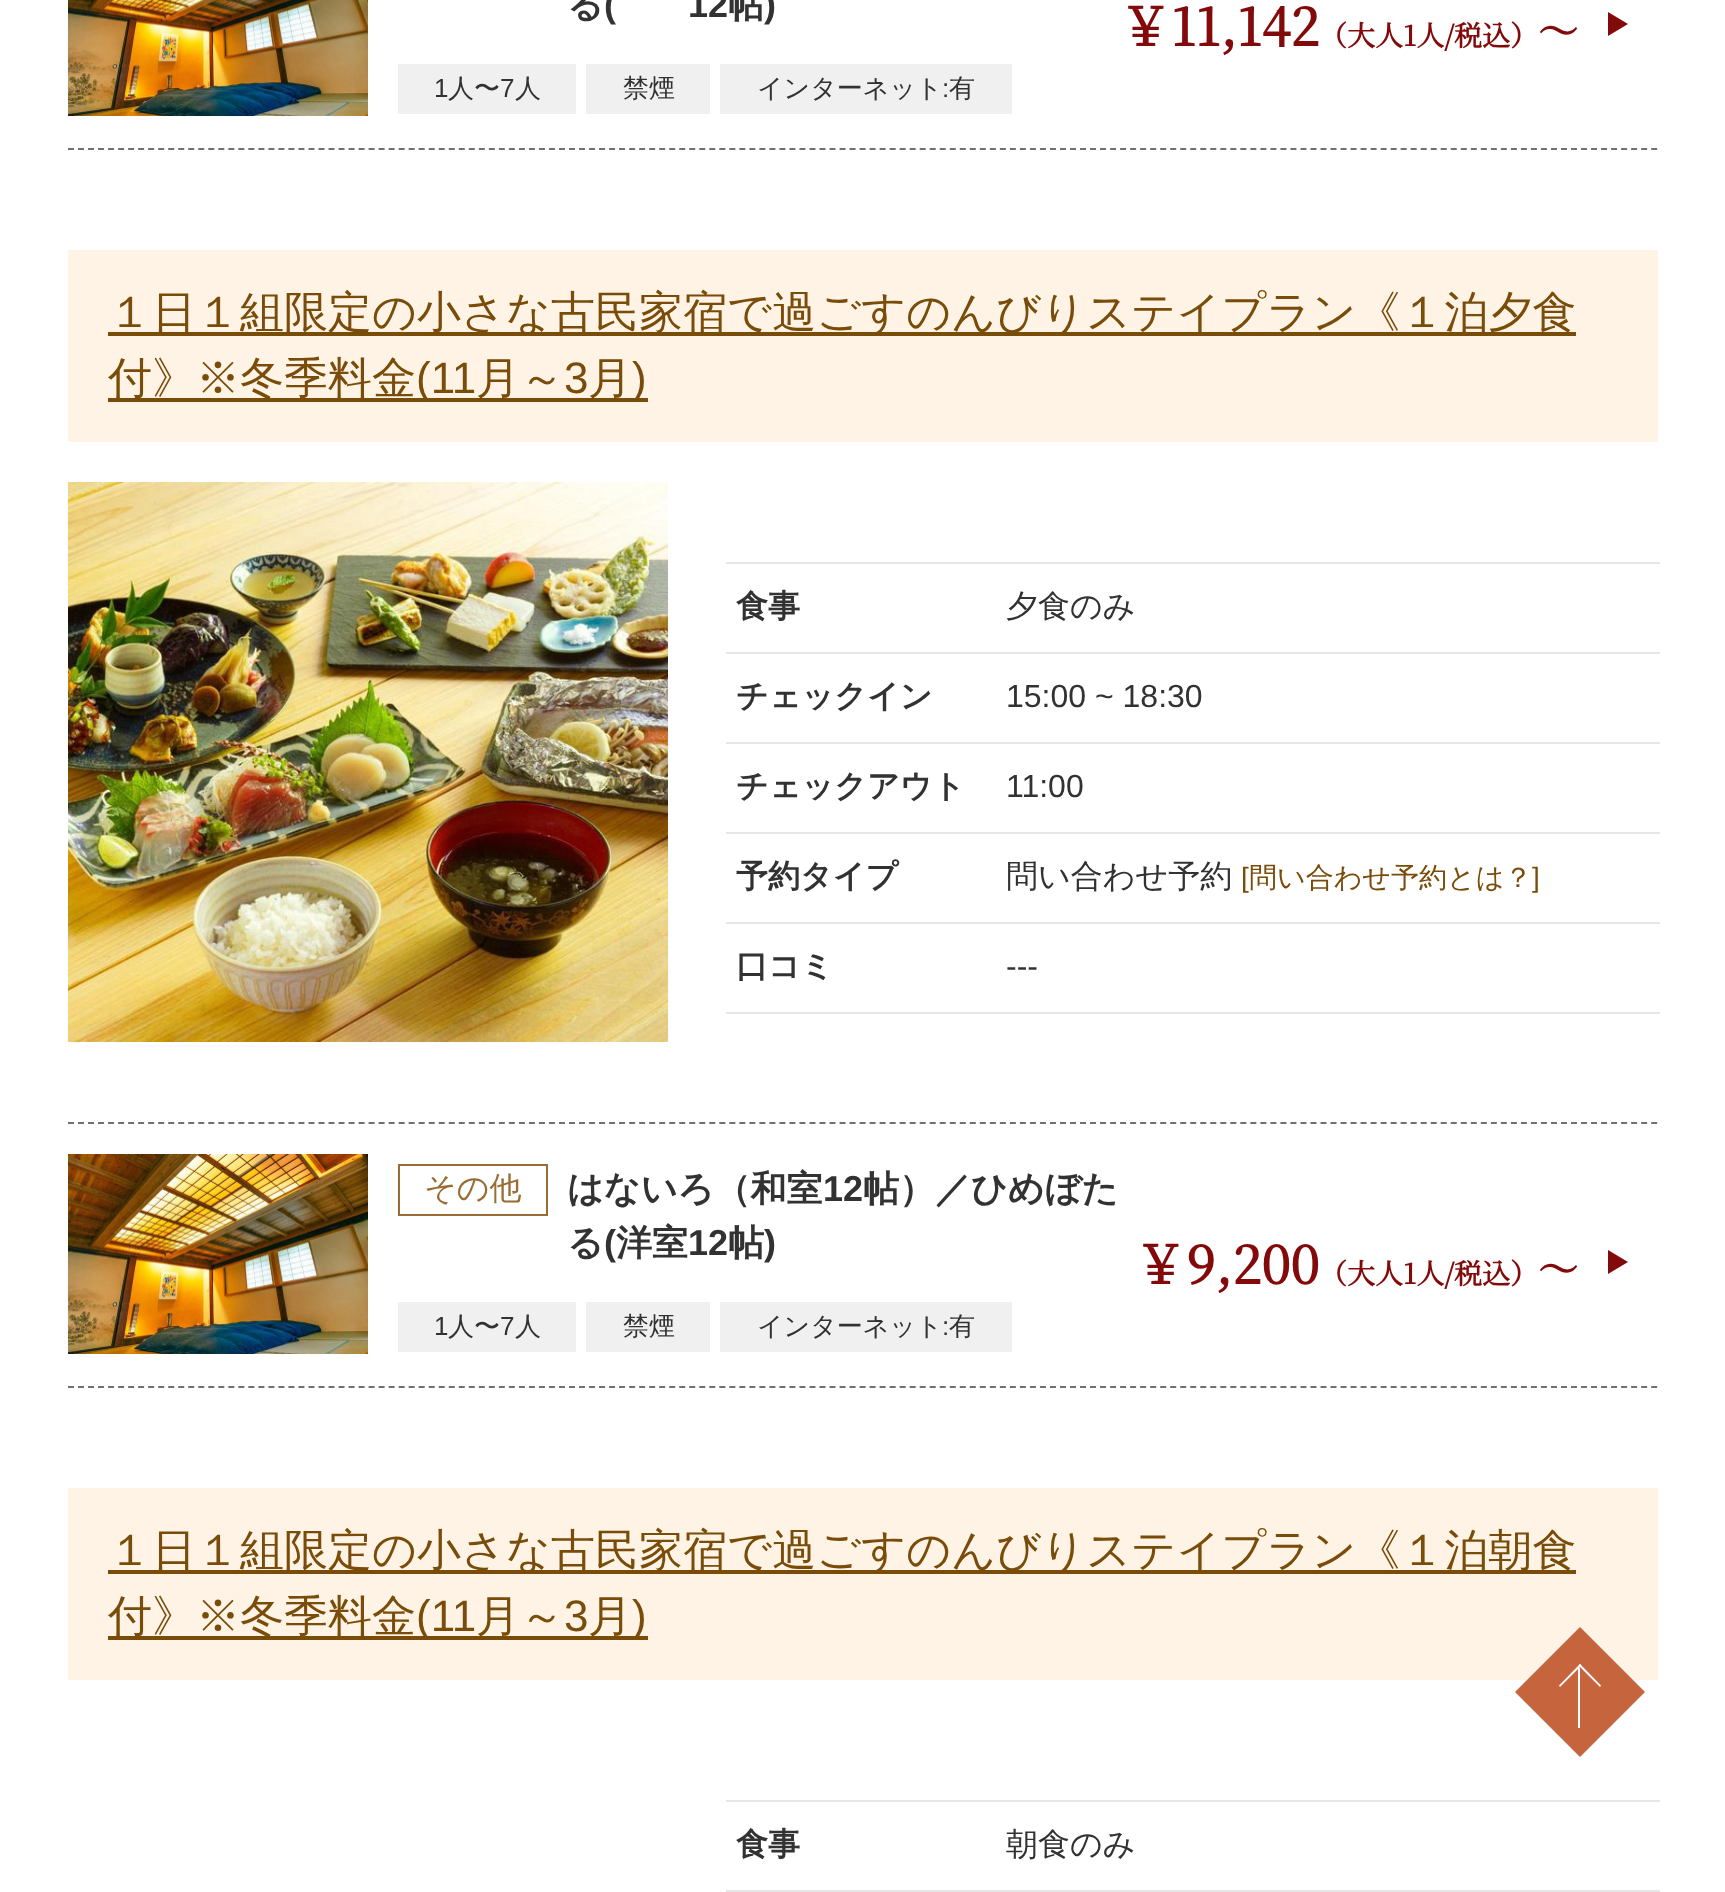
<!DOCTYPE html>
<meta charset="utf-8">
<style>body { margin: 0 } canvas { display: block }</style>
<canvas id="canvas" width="1725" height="1892"></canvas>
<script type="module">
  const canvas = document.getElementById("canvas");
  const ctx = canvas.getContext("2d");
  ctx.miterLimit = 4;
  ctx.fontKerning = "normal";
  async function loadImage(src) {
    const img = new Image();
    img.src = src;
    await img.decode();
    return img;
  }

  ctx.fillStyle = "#ffffff";
  ctx.fillRect(0, 0, 1725, 1892);
  ctx.beginPath();
  ctx.moveTo(68, 149);
  ctx.lineTo(1658, 149);
  ctx.strokeStyle = "#707070";
  ctx.lineWidth = 2;
  ctx.setLineDash([6, 4.02]);
  ctx.stroke();
  ctx.drawImage(await loadImage("img1.png"), 68, 0, 300, 116);
  ctx.font = "bold 36px WenQuanYi Zen Hei";
  ctx.fillStyle = "#323232";
  ctx.fillText("る", 567, 17);
  ctx.font = "bold 36px Liberation Sans";
  ctx.fillText("(", 604, 17);
  ctx.fillText("12", 688, 17);
  ctx.font = "bold 36px WenQuanYi Zen Hei";
  ctx.fillText("帖", 728, 17);
  ctx.font = "bold 36px Liberation Sans";
  ctx.fillText(")", 764, 17);
  ctx.fillStyle = "#f0f0f0";
  ctx.fillRect(398, 64, 178, 50);
  ctx.font = "26px Liberation Sans";
  ctx.fillStyle = "#323232";
  ctx.fillText("1", 434, 97);
  ctx.font = "500 26px WenQuanYi Zen Hei";
  ctx.fillText("人〜", 448, 97);
  ctx.font = "26px Liberation Sans";
  ctx.fillText("7", 500, 97);
  ctx.font = "500 26px WenQuanYi Zen Hei";
  ctx.fillText("人", 515, 97);
  ctx.fillStyle = "#f0f0f0";
  ctx.fillRect(586, 64, 124, 50);
  ctx.fillStyle = "#323232";
  ctx.fillText("禁煙", 623, 97);
  ctx.fillStyle = "#f0f0f0";
  ctx.fillRect(720, 64, 292, 50);
  ctx.fillStyle = "#323232";
  ctx.fillText("インターネット", 757, 97);
  ctx.font = "26px Liberation Sans";
  ctx.fillText(":", 942, 97);
  ctx.font = "500 26px WenQuanYi Zen Hei";
  ctx.fillText("有", 949, 97);
  ctx.font = "bold 52px Noto Serif JP";
  ctx.fillStyle = "#830a0a";
  ctx.fillText("￥11,142", 1119, 46);
  ctx.font = "bold 28px Noto Serif JP";
  ctx.fillText("（大人1人/税込）", 1319, 46);
  ctx.font = "bold 40px Noto Serif JP";
  ctx.fillText("～", 1538, 46);
  ctx.beginPath();
  ctx.moveTo(1608, 36);
  ctx.lineTo(1608, 12);
  ctx.lineTo(1628, 24);
  ctx.closePath();
  ctx.fill();
  ctx.fillStyle = "#fef3e5";
  ctx.fillRect(68, 250, 1590, 192);
  ctx.fillStyle = "#794c09";
  ctx.fillRect(108, 332, 1468, 4);
  ctx.font = "500 44px WenQuanYi Zen Hei";
  ctx.fillText("１日１組限定の小さな古民家宿で過ごすのんびりステイプラン《１泊夕食", 108, 327);
  ctx.fillRect(108, 398, 540, 4);
  ctx.fillText("付》※冬季料金", 108, 393);
  ctx.font = "44px Liberation Sans";
  ctx.fillText("(11", 416, 393);
  ctx.font = "500 44px WenQuanYi Zen Hei";
  ctx.fillText("月～", 476, 393);
  ctx.font = "44px Liberation Sans";
  ctx.fillText("3", 564, 393);
  ctx.font = "500 44px WenQuanYi Zen Hei";
  ctx.fillText("月", 588, 393);
  ctx.font = "44px Liberation Sans";
  ctx.fillText(")", 632, 393);
  ctx.drawImage(await loadImage("img2.png"), 68, 482, 600, 560);
  ctx.font = "bold 32px WenQuanYi Zen Hei";
  ctx.fillStyle = "#323232";
  ctx.fillText("食事", 736, 617);
  ctx.fillStyle = "#e6e6e6";
  ctx.fillRect(726, 562, 934, 2);
  ctx.font = "500 32px WenQuanYi Zen Hei";
  ctx.fillStyle = "#323232";
  ctx.fillText("夕食のみ", 1006, 617);
  ctx.font = "bold 32px WenQuanYi Zen Hei";
  ctx.fillText("チェックイン", 736, 707);
  ctx.fillStyle = "#e6e6e6";
  ctx.fillRect(726, 652, 934, 2);
  ctx.font = "32px Liberation Sans";
  ctx.fillStyle = "#323232";
  ctx.fillText("15:00 ~ 18:30", 1006, 707);
  ctx.font = "bold 32px WenQuanYi Zen Hei";
  ctx.fillText("チェックアウト", 736, 797);
  ctx.fillStyle = "#e6e6e6";
  ctx.fillRect(726, 742, 934, 2);
  ctx.font = "32px Liberation Sans";
  ctx.fillStyle = "#323232";
  ctx.fillText("11:00", 1006, 797);
  ctx.font = "bold 32px WenQuanYi Zen Hei";
  ctx.fillText("予約タイプ", 736, 887);
  ctx.fillStyle = "#e6e6e6";
  ctx.fillRect(726, 832, 934, 2);
  ctx.font = "500 32px WenQuanYi Zen Hei";
  ctx.fillStyle = "#323232";
  ctx.fillText("問い合わせ予約", 1006, 887);
  ctx.font = "28px Liberation Sans";
  ctx.fillStyle = "#794c09";
  ctx.fillText("[", 1241, 887);
  ctx.font = "500 28px WenQuanYi Zen Hei";
  ctx.fillText("問い合わせ予約とは？", 1249, 887);
  ctx.font = "28px Liberation Sans";
  ctx.fillText("]", 1532, 887);
  ctx.font = "bold 32px WenQuanYi Zen Hei";
  ctx.fillStyle = "#323232";
  ctx.fillText("口コミ", 736, 977);
  ctx.fillStyle = "#e6e6e6";
  ctx.fillRect(726, 922, 934, 2);
  ctx.fillRect(726, 1012, 934, 2);
  ctx.font = "32px Liberation Sans";
  ctx.fillStyle = "#323232";
  ctx.fillText("---", 1006, 977);
  ctx.beginPath();
  ctx.moveTo(68, 1123);
  ctx.lineTo(1658, 1123);
  ctx.stroke();
  ctx.beginPath();
  ctx.moveTo(68, 1387);
  ctx.lineTo(1658, 1387);
  ctx.stroke();
  ctx.drawImage(await loadImage("img3.png"), 68, 1154, 300, 200);
  ctx.strokeStyle = "#996c33";
  ctx.setLineDash([]);
  ctx.strokeRect(399, 1165, 148, 50);
  ctx.font = "500 32px WenQuanYi Zen Hei";
  ctx.fillStyle = "#996c33";
  ctx.fillText("その他", 424, 1199);
  ctx.font = "bold 36px WenQuanYi Zen Hei";
  ctx.fillStyle = "#323232";
  ctx.fillText("はないろ（和室", 567, 1201);
  ctx.font = "bold 36px Liberation Sans";
  ctx.fillText("12", 823, 1201);
  ctx.font = "bold 36px WenQuanYi Zen Hei";
  ctx.fillText("帖）／ひめぼた", 863, 1201);
  ctx.fillText("る", 567, 1255);
  ctx.font = "bold 36px Liberation Sans";
  ctx.fillText("(", 604, 1255);
  ctx.font = "bold 36px WenQuanYi Zen Hei";
  ctx.fillText("洋室", 616, 1255);
  ctx.font = "bold 36px Liberation Sans";
  ctx.fillText("12", 688, 1255);
  ctx.font = "bold 36px WenQuanYi Zen Hei";
  ctx.fillText("帖", 728, 1255);
  ctx.font = "bold 36px Liberation Sans";
  ctx.fillText(")", 764, 1255);
  ctx.fillStyle = "#f0f0f0";
  ctx.fillRect(398, 1302, 178, 50);
  ctx.font = "26px Liberation Sans";
  ctx.fillStyle = "#323232";
  ctx.fillText("1", 434, 1335);
  ctx.font = "500 26px WenQuanYi Zen Hei";
  ctx.fillText("人〜", 448, 1335);
  ctx.font = "26px Liberation Sans";
  ctx.fillText("7", 500, 1335);
  ctx.font = "500 26px WenQuanYi Zen Hei";
  ctx.fillText("人", 515, 1335);
  ctx.fillStyle = "#f0f0f0";
  ctx.fillRect(586, 1302, 124, 50);
  ctx.fillStyle = "#323232";
  ctx.fillText("禁煙", 623, 1335);
  ctx.fillStyle = "#f0f0f0";
  ctx.fillRect(720, 1302, 292, 50);
  ctx.fillStyle = "#323232";
  ctx.fillText("インターネット", 757, 1335);
  ctx.font = "26px Liberation Sans";
  ctx.fillText(":", 942, 1335);
  ctx.font = "500 26px WenQuanYi Zen Hei";
  ctx.fillText("有", 949, 1335);
  ctx.font = "bold 52px Noto Serif JP";
  ctx.fillStyle = "#830a0a";
  ctx.fillText("￥9,200", 1134, 1284);
  ctx.font = "bold 28px Noto Serif JP";
  ctx.fillText("（大人1人/税込）", 1319, 1284);
  ctx.font = "bold 40px Noto Serif JP";
  ctx.fillText("～", 1538, 1284);
  ctx.beginPath();
  ctx.moveTo(1608, 1274);
  ctx.lineTo(1608, 1250);
  ctx.lineTo(1628, 1262);
  ctx.closePath();
  ctx.fill();
  ctx.fillStyle = "#fef3e5";
  ctx.fillRect(68, 1488, 1590, 192);
  ctx.fillStyle = "#794c09";
  ctx.fillRect(108, 1570, 1468, 4);
  ctx.font = "500 44px WenQuanYi Zen Hei";
  ctx.fillText("１日１組限定の小さな古民家宿で過ごすのんびりステイプラン《１泊朝食", 108, 1565);
  ctx.fillRect(108, 1636, 540, 4);
  ctx.fillText("付》※冬季料金", 108, 1631);
  ctx.font = "44px Liberation Sans";
  ctx.fillText("(11", 416, 1631);
  ctx.font = "500 44px WenQuanYi Zen Hei";
  ctx.fillText("月～", 476, 1631);
  ctx.font = "44px Liberation Sans";
  ctx.fillText("3", 564, 1631);
  ctx.font = "500 44px WenQuanYi Zen Hei";
  ctx.fillText("月", 588, 1631);
  ctx.font = "44px Liberation Sans";
  ctx.fillText(")", 632, 1631);
  ctx.font = "bold 32px WenQuanYi Zen Hei";
  ctx.fillStyle = "#323232";
  ctx.fillText("食事", 736, 1855);
  ctx.fillStyle = "#e6e6e6";
  ctx.fillRect(726, 1800, 934, 2);
  ctx.font = "500 32px WenQuanYi Zen Hei";
  ctx.fillStyle = "#323232";
  ctx.fillText("朝食のみ", 1006, 1855);
  ctx.fillStyle = "#e6e6e6";
  ctx.fillRect(726, 1890, 934, 2);
  ctx.fillStyle = "#c6643e";
  ctx.beginPath();
  ctx.moveTo(1580, 1627);
  ctx.lineTo(1645, 1692);
  ctx.lineTo(1580, 1757);
  ctx.lineTo(1515, 1692);
  ctx.closePath();
  ctx.fill();
  ctx.fillStyle = "#ffffff";
  ctx.beginPath();
  ctx.moveTo(1580, 1664);
  ctx.lineTo(1601, 1685.5);
  ctx.lineTo(1600, 1687);
  ctx.lineTo(1578.5, 1665.5);
  ctx.closePath();
  ctx.fill();
  ctx.beginPath();
  ctx.moveTo(1580, 1664);
  ctx.lineTo(1581.5, 1665.5);
  ctx.lineTo(1560, 1687);
  ctx.lineTo(1559, 1685.5);
  ctx.closePath();
  ctx.fill();
  ctx.fillRect(1578, 1668, 2, 60);
</script>
